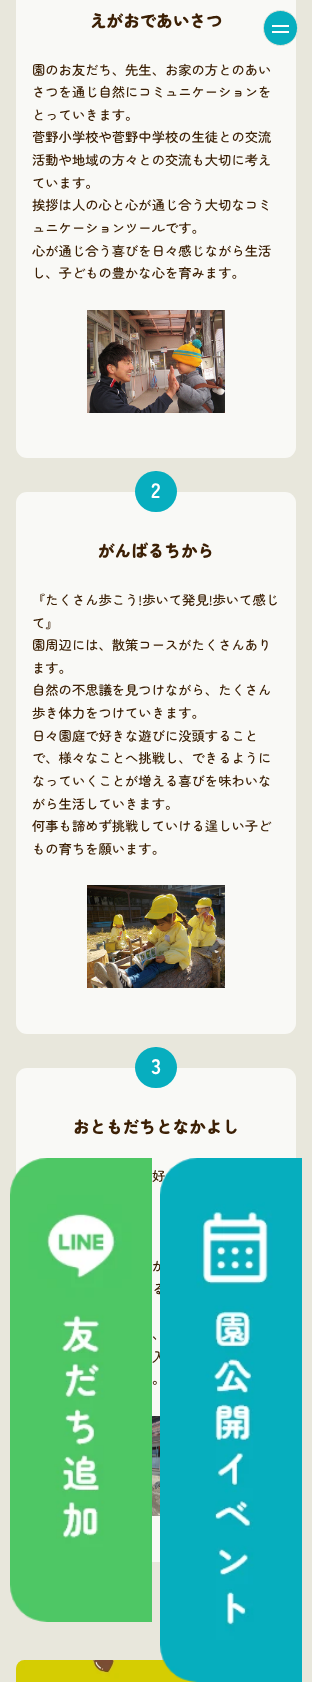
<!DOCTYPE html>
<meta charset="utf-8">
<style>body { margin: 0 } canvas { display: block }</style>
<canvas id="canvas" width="312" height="1682"></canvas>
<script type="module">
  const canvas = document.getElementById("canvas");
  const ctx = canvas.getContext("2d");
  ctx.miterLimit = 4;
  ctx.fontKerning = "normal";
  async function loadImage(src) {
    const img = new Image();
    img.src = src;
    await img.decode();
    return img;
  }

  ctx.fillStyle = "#e8e7dc";
  ctx.fillRect(0, 0, 312, 1682);
  ctx.fillStyle = "#f9f9f6";
  ctx.beginPath();
  ctx.roundRect(16, -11, 280, 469, 11);
  ctx.fill();
  ctx.font = "900 16.6px Zen Maru Gothic";
  ctx.fillStyle = "#3c2005";
  ctx.fillText("えがおであいさつ", 90, 27);
  ctx.font = "500 13.3px Zen Maru Gothic";
  ctx.fillText("園のお友だち、先生、お家の方とのあい", 32, 75);
  ctx.fillText("さつを通じ自然にコミュニケーションを", 32, 97);
  ctx.fillText("とっていきます。", 32, 120);
  ctx.fillText("菅野小学校や菅野中学校の生徒との交流", 32, 142);
  ctx.fillText("活動や地域の方々との交流も大切に考え", 32, 165);
  ctx.fillText("ています。", 32, 188);
  ctx.fillText("挨拶は人の心と心が通じ合う大切なコミ", 32, 210);
  ctx.fillText("ュニケーションツールです。", 32, 233);
  ctx.fillText("心が通じ合う喜びを日々感じながら生活", 32, 256);
  ctx.fillText("し、子どもの豊かな心を育みます。", 32, 278);
  ctx.drawImage(await loadImage("img1.png"), 87, 310, 138, 103);
  ctx.fillStyle = "#f9f9f6";
  ctx.beginPath();
  ctx.roundRect(16, 492, 280, 542, 11);
  ctx.fill();
  ctx.fillStyle = "#07aebf";
  ctx.beginPath();
  ctx.roundRect(135, 471, 42, 41, 20.5);
  ctx.fill();
  ctx.font = "bold 21px Zen Maru Gothic";
  ctx.fillStyle = "#ffffff";
  ctx.fillText("2", 151, 498);
  ctx.font = "900 16.6px Zen Maru Gothic";
  ctx.fillStyle = "#3c2005";
  ctx.fillText("がんばるちから", 98, 557);
  ctx.font = "500 13.3px Zen Maru Gothic";
  ctx.fillText("『たくさん歩こう!歩いて発見!歩いて感じ", 32, 605);
  ctx.fillText("て』", 32, 628);
  ctx.fillText("園周辺には、散策コースがたくさんあり", 32, 650);
  ctx.fillText("ます。", 32, 673);
  ctx.fillText("自然の不思議を見つけながら、たくさん", 32, 695);
  ctx.fillText("歩き体力をつけていきます。", 32, 718);
  ctx.fillText("日々園庭で好きな遊びに没頭すること", 32, 741);
  ctx.fillText("で、様々なことへ挑戦し、できるように", 32, 763);
  ctx.fillText("なっていくことが増える喜びを味わいな", 32, 786);
  ctx.fillText("がら生活していきます。", 32, 809);
  ctx.fillText("何事も諦めず挑戦していける逞しい子ど", 32, 831);
  ctx.fillText("もの育ちを願います。", 32, 854);
  ctx.drawImage(await loadImage("img2.png"), 87, 885, 138, 103);
  ctx.fillStyle = "#f9f9f6";
  ctx.beginPath();
  ctx.roundRect(16, 1068, 280, 494, 11);
  ctx.fill();
  ctx.fillStyle = "#07aebf";
  ctx.beginPath();
  ctx.roundRect(135, 1047, 42, 41, 20.5);
  ctx.fill();
  ctx.font = "bold 21px Zen Maru Gothic";
  ctx.fillStyle = "#ffffff";
  ctx.fillText("3", 151, 1074);
  ctx.font = "900 16.6px Zen Maru Gothic";
  ctx.fillStyle = "#3c2005";
  ctx.fillText("おともだちとなかよし", 73, 1133);
  ctx.font = "500 13.3px Zen Maru Gothic";
  ctx.fillText("好", 152, 1181);
  ctx.fillText("が", 152, 1271);
  ctx.fillText("る", 152, 1294);
  ctx.fillText("、", 152, 1339);
  ctx.fillText("入", 152, 1362);
  ctx.fillText("。", 152, 1384);
  ctx.drawImage(await loadImage("img3.png"), 152, 1416, 8, 100);
  ctx.drawImage(await loadImage("img4.png"), 16, 1660, 182, 22);
  ctx.drawImage(await loadImage("img5.png"), 10, 1158, 142, 464);
  ctx.drawImage(await loadImage("img6.png"), 160, 1158, 142, 524);
  ctx.fillStyle = "#07aebf";
  ctx.beginPath();
  ctx.roundRect(263.5, 10.5, 34, 35, 17);
  ctx.fill();
  ctx.strokeStyle = "#e8e7dc";
  ctx.stroke();
  ctx.fillStyle = "#ffffff";
  ctx.fillRect(272, 25, 17, 2);
  ctx.fillRect(272, 31, 17, 2);
</script>
